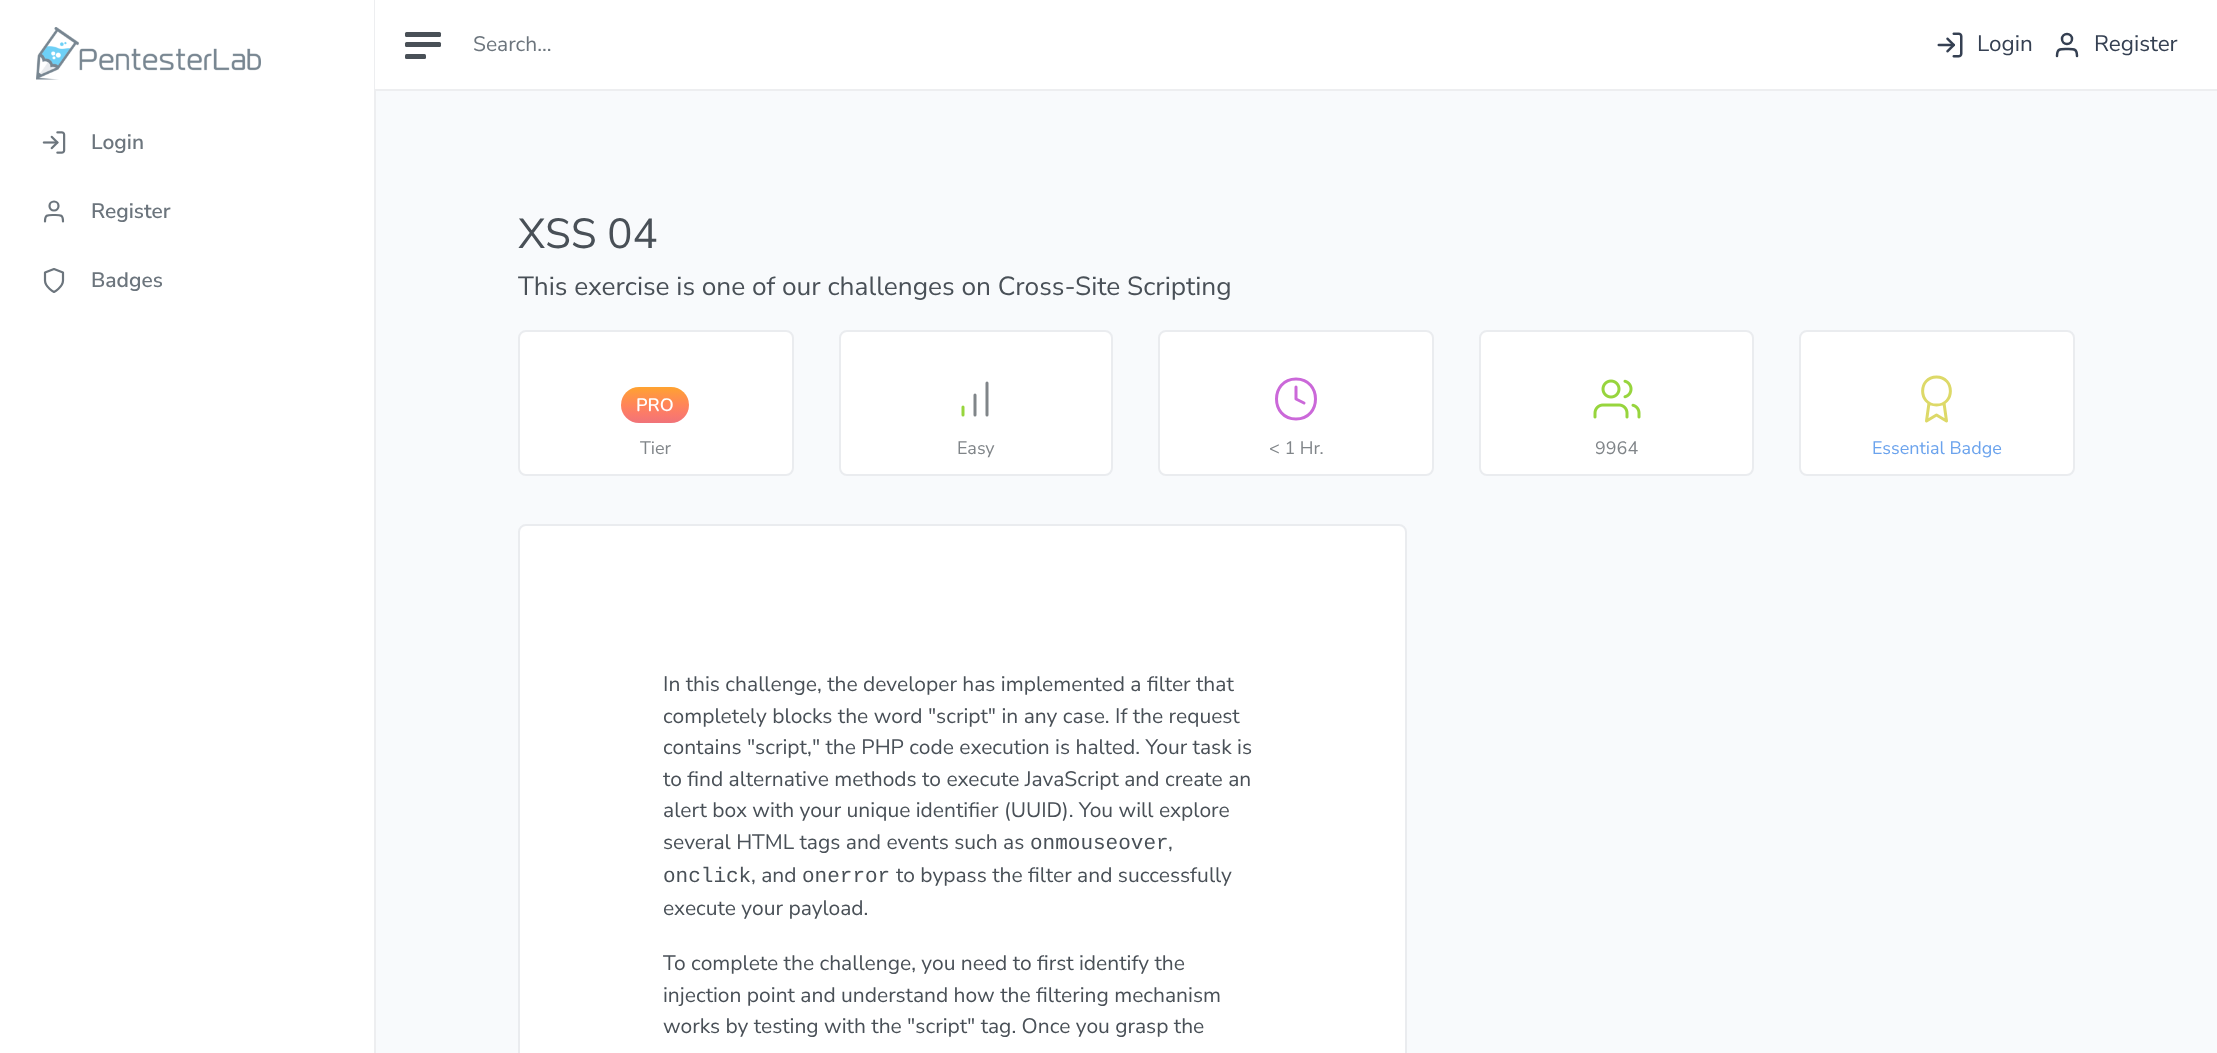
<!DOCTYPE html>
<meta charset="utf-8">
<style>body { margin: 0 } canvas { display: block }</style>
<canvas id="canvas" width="2217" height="1053"></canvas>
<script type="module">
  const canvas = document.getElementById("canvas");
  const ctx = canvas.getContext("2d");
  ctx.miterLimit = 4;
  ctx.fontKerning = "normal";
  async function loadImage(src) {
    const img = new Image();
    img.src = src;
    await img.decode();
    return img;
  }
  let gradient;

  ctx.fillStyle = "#f8fafc";
  ctx.fillRect(0, 0, 2217, 1053);
  ctx.fillStyle = "#ffffff";
  ctx.fillRect(0, 0, 374, 1053);
  ctx.fillStyle = "#edeef0";
  ctx.fillRect(374, 0, 2, 1053);
  ctx.drawImage(await loadImage("img1.png"), 36, 27, 225, 53);
  ctx.drawImage(await loadImage("img2.png"), 42, 131, 24, 23);
  ctx.font = "600 21px Nunito Sans";
  ctx.fillStyle = "#6c757d";
  ctx.fillText("Login", 91, 149);
  ctx.beginPath();
  ctx.arc(54, 206, 4.5, 0, Math.PI * 2);
  ctx.strokeStyle = "#6c757d";
  ctx.lineWidth = 2.2;
  ctx.stroke();
  ctx.fillText("Register", 91, 218);
  ctx.beginPath();
  ctx.moveTo(63, 221.5);
  ctx.bezierCurveTo(63, 214.5, 60.5, 215, 54, 215);
  ctx.bezierCurveTo(47.5, 215, 45, 214.5, 45, 221.5);
  ctx.lineCap = "round";
  ctx.lineJoin = "round";
  ctx.stroke();
  ctx.beginPath();
  ctx.moveTo(54, 292);
  ctx.bezierCurveTo(54, 292, 63, 287, 63, 280.5);
  ctx.lineTo(63, 272.5);
  ctx.lineTo(54, 269);
  ctx.lineTo(45, 272.5);
  ctx.lineTo(45, 280.5);
  ctx.bezierCurveTo(45, 287, 54, 292, 54, 292);
  ctx.closePath();
  ctx.stroke();
  ctx.fillText("Badges", 91, 287);
  ctx.fillStyle = "#ffffff";
  ctx.fillRect(375, 0, 1842, 89);
  ctx.fillStyle = "#edeef0";
  ctx.fillRect(375, 89, 1842, 2);
  ctx.fillStyle = "#495057";
  ctx.beginPath();
  ctx.roundRect(405, 42, 36, 5, 1.5);
  ctx.fill();
  ctx.beginPath();
  ctx.roundRect(405, 32, 36, 5, 1.5);
  ctx.fill();
  ctx.beginPath();
  ctx.roundRect(405, 54, 21, 5, 1.5);
  ctx.fill();
  ctx.font = "21px Nunito Sans";
  ctx.fillStyle = "#6c757d";
  ctx.fillText("Search...", 473, 51);
  ctx.drawImage(await loadImage("img3.png"), 1937, 32, 26, 26);
  ctx.font = "22.5px Nunito Sans";
  ctx.fillStyle = "#354052";
  ctx.fillText("Login", 1977, 51);
  ctx.beginPath();
  ctx.arc(2067, 39, 5, 0, Math.PI * 2);
  ctx.strokeStyle = "#354052";
  ctx.lineWidth = 2.5;
  ctx.stroke();
  ctx.fillText("Register", 2094, 51);
  ctx.beginPath();
  ctx.moveTo(2077, 56);
  ctx.bezierCurveTo(2077, 48.5, 2074, 49, 2067, 49);
  ctx.bezierCurveTo(2060, 49, 2057, 48.5, 2057, 56);
  ctx.stroke();
  ctx.font = "42px Nunito Sans";
  ctx.fillStyle = "#495057";
  ctx.fillText("XSS 04", 518, 248);
  ctx.font = "26.25px Nunito Sans";
  ctx.fillText("This exercise is one of our challenges on Cross-Site Scripting", 518, 295);
  ctx.fillStyle = "#ffffff";
  ctx.beginPath();
  ctx.roundRect(519, 331, 274, 144, 7);
  ctx.fill();
  ctx.strokeStyle = "#eaecef";
  ctx.lineWidth = 2;
  ctx.lineJoin = "miter";
  ctx.stroke();
  gradient = ctx.createLinearGradient(655, 387, 655, 423);
  gradient.addColorStop(0, "#ffa330");
  gradient.addColorStop(0.25, "#ff9346");
  gradient.addColorStop(0.5, "#ff8559");
  gradient.addColorStop(0.75, "#fb7a6a");
  gradient.addColorStop(1, "#f07379");
  ctx.fillStyle = gradient;
  ctx.beginPath();
  ctx.roundRect(621, 387, 68, 36, 18);
  ctx.fill();
  ctx.font = "600 18px Nunito";
  ctx.fillStyle = "#ffffff";
  ctx.fillText("PRO", 636, 411);
  ctx.font = "18px Nunito Sans";
  ctx.fillStyle = "#808589";
  ctx.fillText("Tier", 640, 454);
  ctx.fillStyle = "#ffffff";
  ctx.beginPath();
  ctx.roundRect(840, 331, 272, 144, 7);
  ctx.fill();
  ctx.stroke();
  ctx.beginPath();
  ctx.moveTo(975, 415);
  ctx.lineTo(975, 395);
  ctx.moveTo(987, 415);
  ctx.lineTo(987, 383);
  ctx.strokeStyle = "#808589";
  ctx.lineWidth = 3;
  ctx.lineJoin = "round";
  ctx.stroke();
  ctx.beginPath();
  ctx.moveTo(963, 415);
  ctx.lineTo(963, 407);
  ctx.strokeStyle = "#97d53d";
  ctx.stroke();
  ctx.fillStyle = "#808589";
  ctx.fillText("Easy", 957, 454);
  ctx.fillStyle = "#ffffff";
  ctx.beginPath();
  ctx.roundRect(1159, 331, 274, 144, 7);
  ctx.fill();
  ctx.strokeStyle = "#eaecef";
  ctx.lineWidth = 2;
  ctx.lineJoin = "miter";
  ctx.stroke();
  ctx.beginPath();
  ctx.moveTo(1296, 419);
  ctx.bezierCurveTo(1322, 419, 1322, 379, 1296, 379);
  ctx.bezierCurveTo(1270, 379, 1270, 419, 1296, 419);
  ctx.closePath();
  ctx.moveTo(1296, 387);
  ctx.lineTo(1296, 399);
  ctx.lineTo(1304, 403);
  ctx.strokeStyle = "#cb68d9";
  ctx.lineWidth = 3;
  ctx.lineJoin = "round";
  ctx.stroke();
  ctx.fillStyle = "#808589";
  ctx.fillText("< 1 Hr.", 1269, 454);
  ctx.fillStyle = "#ffffff";
  ctx.beginPath();
  ctx.roundRect(1480, 331, 273, 144, 7);
  ctx.fill();
  ctx.strokeStyle = "#eaecef";
  ctx.lineWidth = 2;
  ctx.lineJoin = "miter";
  ctx.stroke();
  ctx.drawImage(await loadImage("img4.png"), 1593, 379, 48, 40);
  ctx.fillStyle = "#808589";
  ctx.fillText("9964", 1595, 454);
  ctx.fillStyle = "#ffffff";
  ctx.beginPath();
  ctx.roundRect(1800, 331, 274, 144, 7);
  ctx.fill();
  ctx.stroke();
  ctx.beginPath();
  ctx.moveTo(1936.5, 405);
  ctx.bezierCurveTo(1955, 405, 1955, 377, 1936.5, 377);
  ctx.bezierCurveTo(1918, 377, 1918, 405, 1936.5, 405);
  ctx.closePath();
  ctx.moveTo(1929, 403);
  ctx.lineTo(1926.5, 421);
  ctx.lineTo(1936.5, 415);
  ctx.lineTo(1946.5, 421);
  ctx.lineTo(1944, 403);
  ctx.strokeStyle = "#ddd968";
  ctx.lineWidth = 3;
  ctx.lineJoin = "round";
  ctx.stroke();
  ctx.fillStyle = "#6ba3ed";
  ctx.fillText("Essential Badge", 1872, 454);
  ctx.fillStyle = "#ffffff";
  ctx.beginPath();
  ctx.roundRect(519, 525, 887, 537, 7);
  ctx.fill();
  ctx.strokeStyle = "#eaecef";
  ctx.lineWidth = 2;
  ctx.lineJoin = "miter";
  ctx.stroke();
  ctx.font = "21px Nunito Sans";
  ctx.fillStyle = "#495057";
  ctx.fillText("In this challenge, the developer has implemented a filter that", 663, 691);
  ctx.fillText("completely blocks the word \"script\" in any case. If the request", 663, 723);
  ctx.fillText("contains \"script,\" the PHP code execution is halted. Your task is", 663, 754);
  ctx.fillText("to find alternative methods to execute JavaScript and create an", 663, 786);
  ctx.fillText("alert box with your unique identifier (UUID). You will explore", 663, 817);
  ctx.fillText("several HTML tags and events such as", 663, 849);
  ctx.font = "21px Liberation Mono";
  ctx.fillText("onmouseover", 1030, 849);
  ctx.font = "21px Nunito Sans";
  ctx.fillText(",", 1168, 849);
  ctx.font = "21px Liberation Mono";
  ctx.fillText("onclick", 663, 882);
  ctx.font = "21px Nunito Sans";
  ctx.fillText(", and", 751, 882);
  ctx.font = "21px Liberation Mono";
  ctx.fillText("onerror", 802, 882);
  ctx.font = "21px Nunito Sans";
  ctx.fillText("to bypass the filter and successfully", 896, 882);
  ctx.fillText("execute your payload.", 663, 915);
  ctx.fillText("To complete the challenge, you need to first identify the", 663, 970);
  ctx.fillText("injection point and understand how the filtering mechanism", 663, 1002);
  ctx.fillText("works by testing with the \"script\" tag. Once you grasp the", 663, 1033);
</script>
